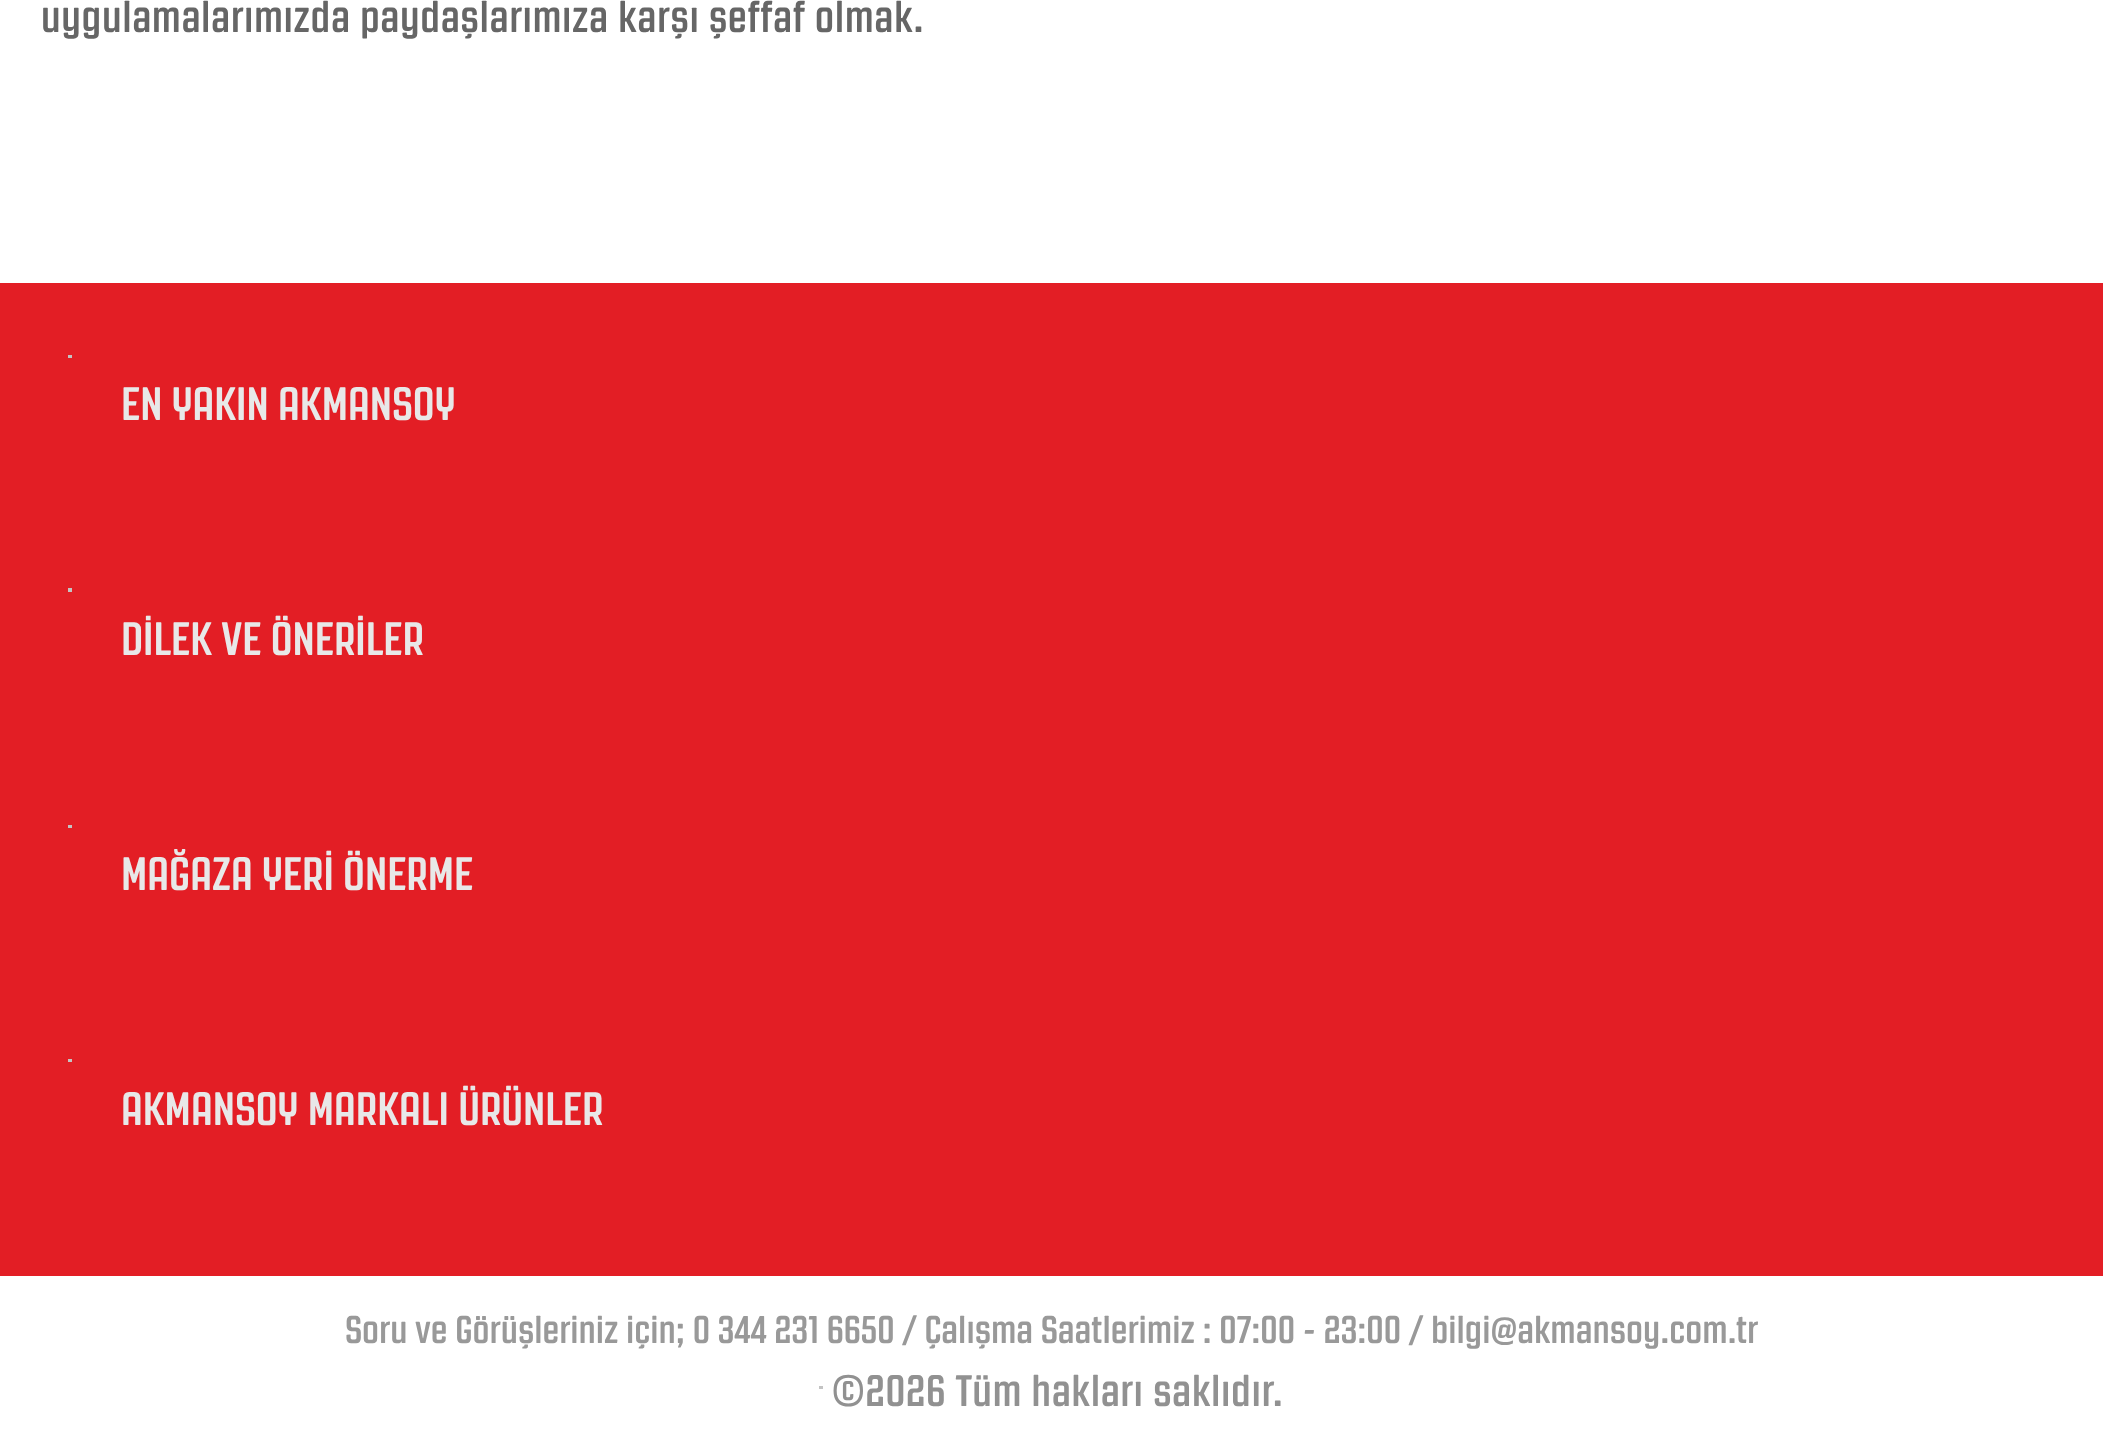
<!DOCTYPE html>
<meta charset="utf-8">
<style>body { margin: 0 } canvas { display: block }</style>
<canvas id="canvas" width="2103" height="1451"></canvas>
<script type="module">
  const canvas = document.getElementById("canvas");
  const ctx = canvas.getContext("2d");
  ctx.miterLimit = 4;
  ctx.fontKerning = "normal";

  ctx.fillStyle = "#ffffff";
  ctx.fillRect(0, 0, 2103, 1451);
  ctx.letterSpacing = "0.55px";
  ctx.font = "bold 44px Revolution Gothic";
  ctx.fillStyle = "#666666";
  ctx.fillText("uygulamalarımızda paydaşlarımıza karşı şeffaf olmak.", 41, 32);
  ctx.fillStyle = "#e31e25";
  ctx.fillRect(0, 283, 2103, 993);
  ctx.fillStyle = "#c3c3c3";
  ctx.fillRect(68, 355, 4, 3);
  ctx.letterSpacing = "0px";
  ctx.font = "bold 46.75px Revolution Gothic";
  ctx.fillStyle = "#e8e8e8";
  ctx.fillText("EN YAKIN AKMANSOY", 121, 420);
  ctx.fillStyle = "#c3c3c3";
  ctx.fillRect(68, 588, 4, 4);
  ctx.fillStyle = "#e8e8e8";
  ctx.fillText("DİLEK VE ÖNERİLER", 121, 655);
  ctx.fillStyle = "#c3c3c3";
  ctx.fillRect(68, 825, 4, 3);
  ctx.fillStyle = "#e8e8e8";
  ctx.fillText("MAĞAZA YERİ ÖNERME", 121, 890);
  ctx.fillStyle = "#c3c3c3";
  ctx.fillRect(68, 1059, 4, 3);
  ctx.fillStyle = "#e8e8e8";
  ctx.fillText("AKMANSOY MARKALI ÜRÜNLER", 121, 1125);
  ctx.font = "bold 38.5px Revolution Gothic";
  ctx.fillStyle = "#999999";
  ctx.fillText("Soru ve Görüşleriniz için; 0 344 231 6650 / Çalışma Saatlerimiz : 07:00 - 23:00 / bilgi@akmansoy.com.tr", 345, 1343);
  ctx.fillStyle = "#c3c3c3";
  ctx.fillRect(819, 1386, 4, 3);
  ctx.letterSpacing = "0.55px";
  ctx.font = "bold 44px Revolution Gothic";
  ctx.fillStyle = "#919191";
  ctx.fillText("©2026 Tüm hakları saklıdır.", 832, 1406);
</script>
